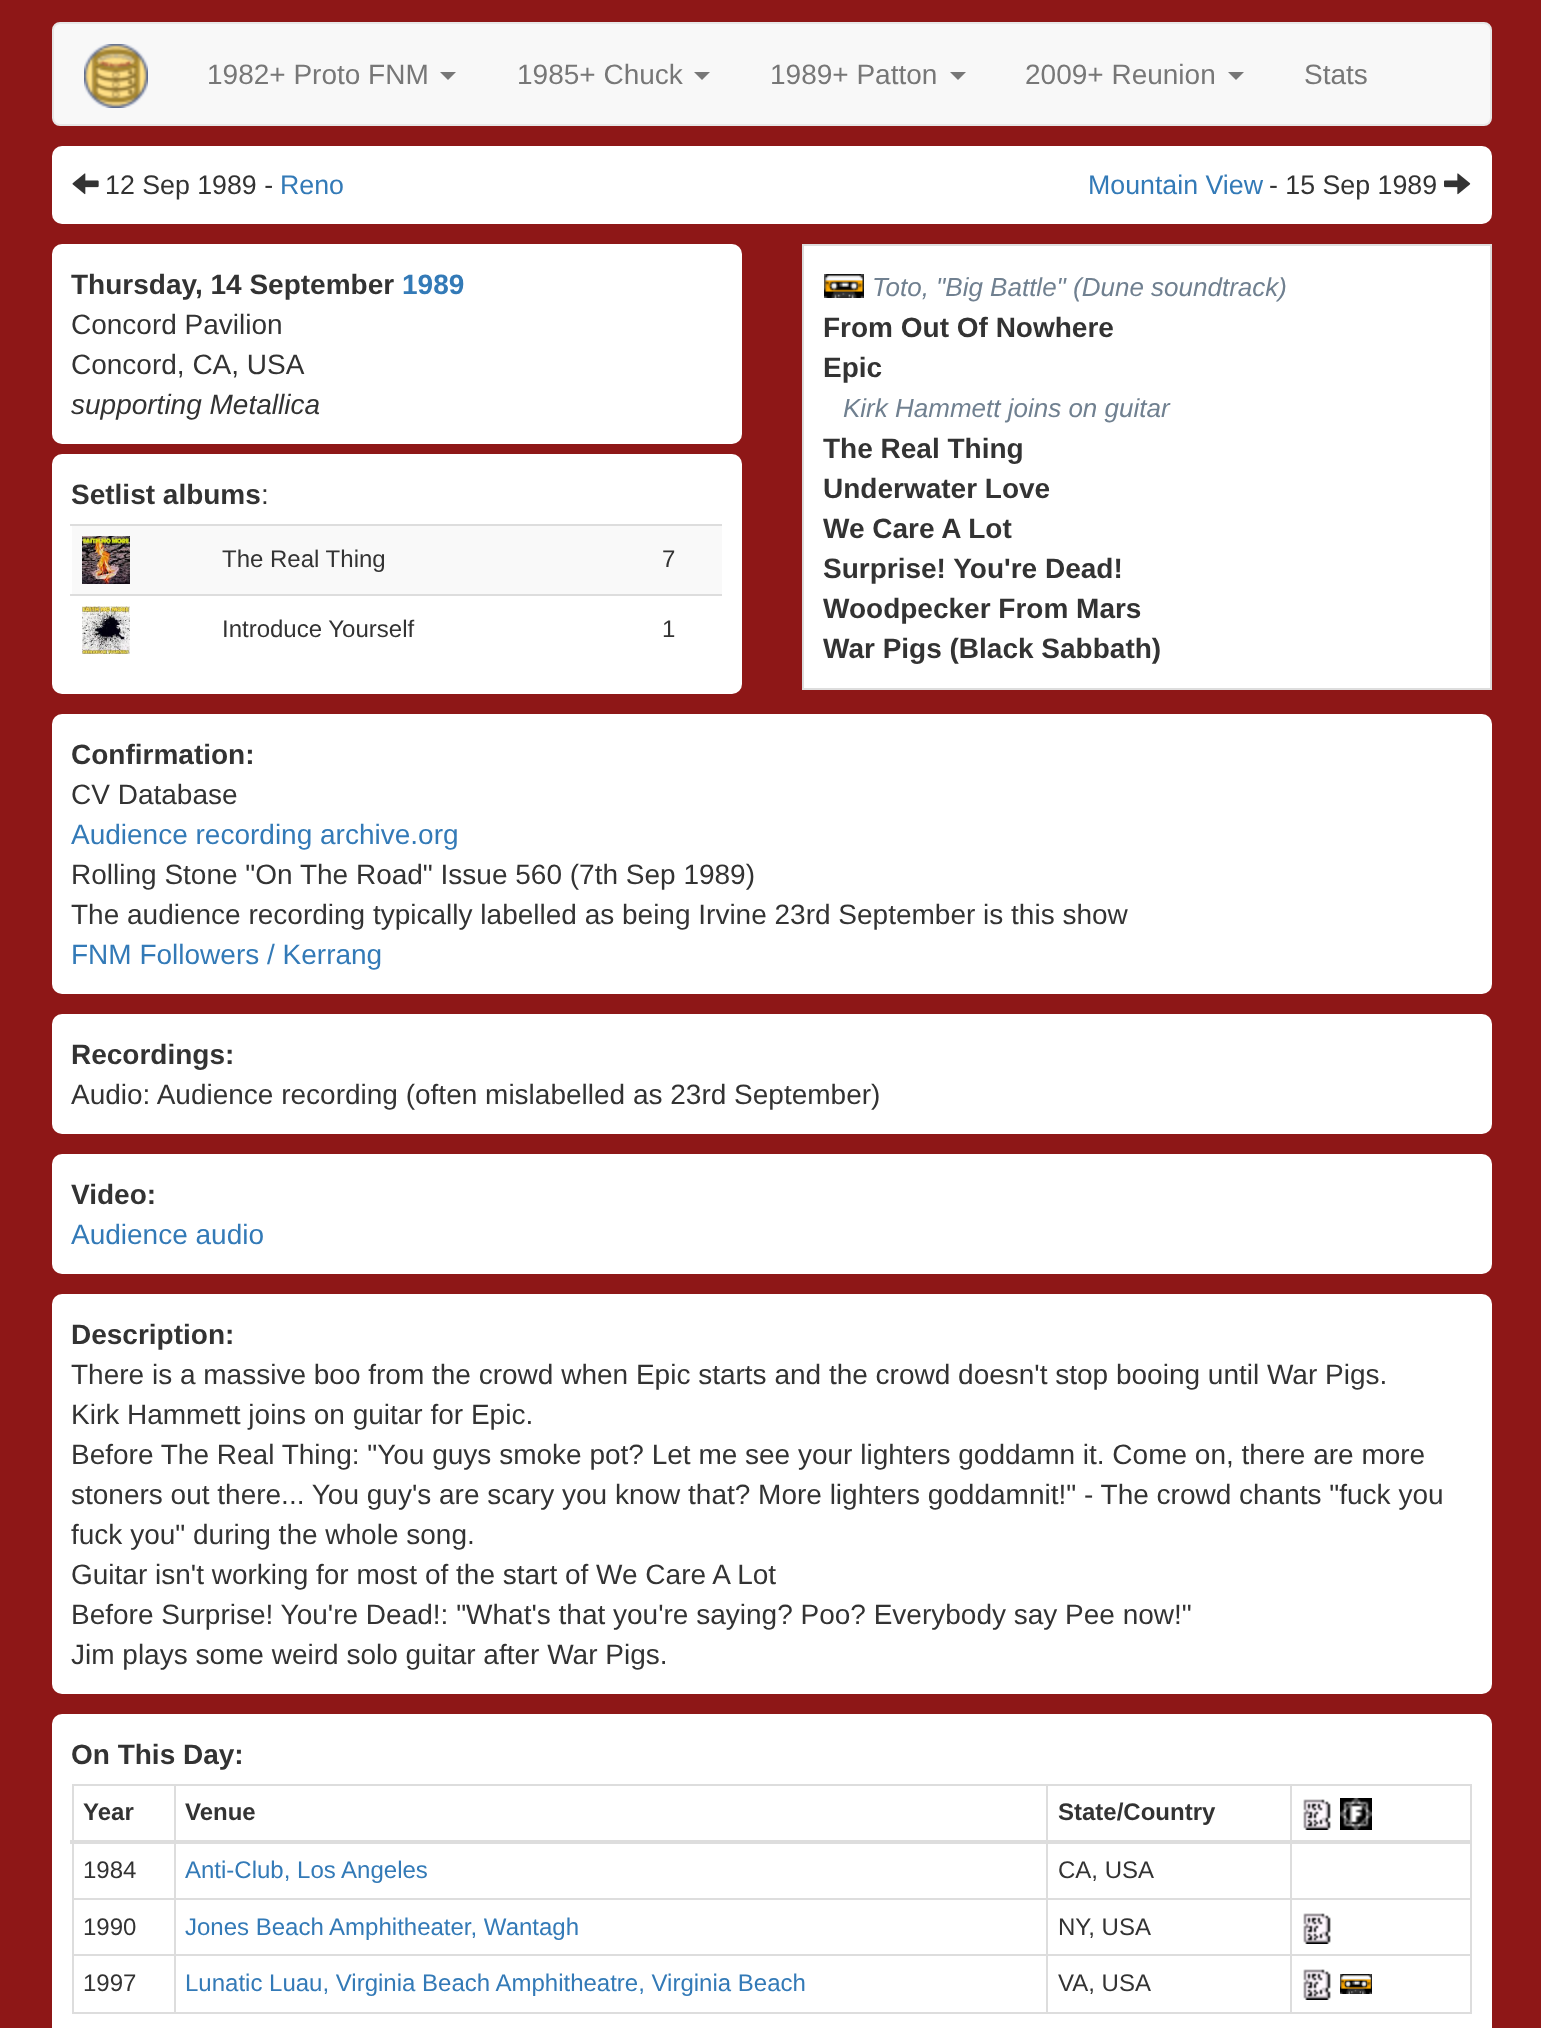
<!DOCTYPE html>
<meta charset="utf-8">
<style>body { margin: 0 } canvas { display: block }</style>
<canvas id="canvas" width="1541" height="2028"></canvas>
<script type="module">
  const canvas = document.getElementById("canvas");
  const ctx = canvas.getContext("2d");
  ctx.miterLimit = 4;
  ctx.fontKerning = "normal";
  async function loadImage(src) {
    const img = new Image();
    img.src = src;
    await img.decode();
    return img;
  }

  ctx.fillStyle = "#8e1717";
  ctx.fillRect(0, 0, 1541, 2028);
  ctx.fillStyle = "#f8f8f8";
  ctx.beginPath();
  ctx.roundRect(53, 23, 1438, 102, 7);
  ctx.fill();
  ctx.strokeStyle = "#e7e7e7";
  ctx.lineWidth = 2;
  ctx.stroke();
  ctx.drawImage(await loadImage("img1.png"), 84, 44, 64, 64);
  ctx.font = "28px Liberation Sans";
  ctx.fillStyle = "#777777";
  ctx.fillText("1982+ Proto FNM", 207, 84);
  ctx.beginPath();
  ctx.moveTo(440, 72);
  ctx.lineTo(456, 72);
  ctx.lineTo(448, 80);
  ctx.closePath();
  ctx.fill();
  ctx.fillText("1985+ Chuck", 517, 84);
  ctx.beginPath();
  ctx.moveTo(694, 72);
  ctx.lineTo(710, 72);
  ctx.lineTo(702, 80);
  ctx.closePath();
  ctx.fill();
  ctx.fillText("1989+ Patton", 770, 84);
  ctx.beginPath();
  ctx.moveTo(950, 72);
  ctx.lineTo(966, 72);
  ctx.lineTo(958, 80);
  ctx.closePath();
  ctx.fill();
  ctx.fillText("2009+ Reunion", 1025, 84);
  ctx.beginPath();
  ctx.moveTo(1228, 72);
  ctx.lineTo(1244, 72);
  ctx.lineTo(1236, 80);
  ctx.closePath();
  ctx.fill();
  ctx.fillText("Stats", 1304, 84);
  ctx.fillStyle = "#ffffff";
  ctx.beginPath();
  ctx.roundRect(52, 146, 1440, 78, 10);
  ctx.fill();
  ctx.drawImage(await loadImage("img2.png"), 72, 173, 27, 22);
  ctx.font = "26.75px Liberation Sans";
  ctx.fillStyle = "#333333";
  ctx.fillText("12 Sep 1989 -", 105, 194);
  ctx.fillStyle = "#337ab7";
  ctx.fillText("Reno", 280, 194);
  ctx.fillText("Mountain View", 1088, 194);
  ctx.fillStyle = "#333333";
  ctx.fillText("- 15 Sep 1989", 1269, 194);
  ctx.drawImage(await loadImage("img3.png"), 1444, 173, 27, 22);
  ctx.fillStyle = "#ffffff";
  ctx.beginPath();
  ctx.roundRect(52, 244, 690, 200, 10);
  ctx.fill();
  ctx.font = "bold 28px Liberation Sans";
  ctx.fillStyle = "#333333";
  ctx.fillText("Thursday, 14 September", 71, 294);
  ctx.fillStyle = "#337ab7";
  ctx.fillText("1989", 402, 294);
  ctx.font = "28px Liberation Sans";
  ctx.fillStyle = "#333333";
  ctx.fillText("Concord Pavilion", 71, 334);
  ctx.fillText("Concord, CA, USA", 71, 374);
  ctx.font = "italic 28px Liberation Sans";
  ctx.fillText("supporting Metallica", 71, 414);
  ctx.fillStyle = "#ffffff";
  ctx.beginPath();
  ctx.roundRect(52, 454, 690, 240, 10);
  ctx.fill();
  ctx.font = "bold 28px Liberation Sans";
  ctx.fillStyle = "#333333";
  ctx.fillText("Setlist albums", 71, 504);
  ctx.font = "28px Liberation Sans";
  ctx.fillText(":", 261, 504);
  ctx.fillStyle = "#f9f9f9";
  ctx.fillRect(72, 526, 650, 68);
  ctx.drawImage(await loadImage("img4.png"), 82, 536, 48, 48);
  ctx.font = "24px Liberation Sans";
  ctx.fillStyle = "#333333";
  ctx.fillText("The Real Thing", 222, 567);
  ctx.fillStyle = "#dddddd";
  ctx.fillRect(70, 524, 652, 2);
  ctx.fillStyle = "#333333";
  ctx.fillText("7", 662, 567);
  ctx.drawImage(await loadImage("img5.png"), 82, 606, 48, 48);
  ctx.fillText("Introduce Yourself", 222, 637);
  ctx.fillStyle = "#dddddd";
  ctx.fillRect(70, 594, 652, 2);
  ctx.fillStyle = "#333333";
  ctx.fillText("1", 662, 637);
  ctx.fillStyle = "#ffffff";
  ctx.beginPath();
  ctx.rect(803, 245, 688, 444);
  ctx.fill();
  ctx.strokeStyle = "#dddddd";
  ctx.stroke();
  ctx.drawImage(await loadImage("img6.png"), 824, 274, 40, 24);
  ctx.font = "italic 26px Liberation Sans";
  ctx.fillStyle = "#708090";
  ctx.fillText("Toto, \"Big Battle\" (Dune soundtrack)", 872, 296);
  ctx.font = "bold 28px Liberation Sans";
  ctx.fillStyle = "#333333";
  ctx.fillText("From Out Of Nowhere", 823, 337);
  ctx.fillText("Epic", 823, 377);
  ctx.font = "italic 26px Liberation Sans";
  ctx.fillStyle = "#708090";
  ctx.fillText("Kirk Hammett joins on guitar", 843, 417);
  ctx.font = "bold 28px Liberation Sans";
  ctx.fillStyle = "#333333";
  ctx.fillText("The Real Thing", 823, 458);
  ctx.fillText("Underwater Love", 823, 498);
  ctx.fillText("We Care A Lot", 823, 538);
  ctx.fillText("Surprise! You're Dead!", 823, 578);
  ctx.fillText("Woodpecker From Mars", 823, 618);
  ctx.fillText("War Pigs (Black Sabbath)", 823, 658);
  ctx.fillStyle = "#ffffff";
  ctx.beginPath();
  ctx.roundRect(52, 714, 1440, 280, 10);
  ctx.fill();
  ctx.fillStyle = "#333333";
  ctx.fillText("Confirmation:", 71, 764);
  ctx.font = "28px Liberation Sans";
  ctx.fillText("CV Database", 71, 804);
  ctx.fillStyle = "#337ab7";
  ctx.fillText("Audience recording archive.org", 71, 844);
  ctx.fillStyle = "#333333";
  ctx.fillText("Rolling Stone \"On The Road\" Issue 560 (7th Sep 1989)", 71, 884);
  ctx.fillText("The audience recording typically labelled as being Irvine 23rd September is this show", 71, 924);
  ctx.fillStyle = "#337ab7";
  ctx.fillText("FNM Followers / Kerrang", 71, 964);
  ctx.fillStyle = "#ffffff";
  ctx.beginPath();
  ctx.roundRect(52, 1014, 1440, 120, 10);
  ctx.fill();
  ctx.font = "bold 28px Liberation Sans";
  ctx.fillStyle = "#333333";
  ctx.fillText("Recordings:", 71, 1064);
  ctx.font = "28px Liberation Sans";
  ctx.fillText("Audio: Audience recording (often mislabelled as 23rd September)", 71, 1104);
  ctx.fillStyle = "#ffffff";
  ctx.beginPath();
  ctx.roundRect(52, 1154, 1440, 120, 10);
  ctx.fill();
  ctx.font = "bold 28px Liberation Sans";
  ctx.fillStyle = "#333333";
  ctx.fillText("Video:", 71, 1204);
  ctx.font = "28px Liberation Sans";
  ctx.fillStyle = "#337ab7";
  ctx.fillText("Audience audio", 71, 1244);
  ctx.fillStyle = "#ffffff";
  ctx.beginPath();
  ctx.roundRect(52, 1294, 1440, 400, 10);
  ctx.fill();
  ctx.font = "bold 28px Liberation Sans";
  ctx.fillStyle = "#333333";
  ctx.fillText("Description:", 71, 1344);
  ctx.font = "28px Liberation Sans";
  ctx.fillText("There is a massive boo from the crowd when Epic starts and the crowd doesn't stop booing until War Pigs.", 71, 1384);
  ctx.fillText("Kirk Hammett joins on guitar for Epic.", 71, 1424);
  ctx.fillText("Before The Real Thing: \"You guys smoke pot? Let me see your lighters goddamn it. Come on, there are more", 71, 1464);
  ctx.fillText("stoners out there... You guy's are scary you know that? More lighters goddamnit!\" - The crowd chants \"fuck you", 71, 1504);
  ctx.fillText("fuck you\" during the whole song.", 71, 1544);
  ctx.fillText("Guitar isn't working for most of the start of We Care A Lot", 71, 1584);
  ctx.fillText("Before Surprise! You're Dead!: \"What's that you're saying? Poo? Everybody say Pee now!\"", 71, 1624);
  ctx.fillText("Jim plays some weird solo guitar after War Pigs.", 71, 1664);
  ctx.fillStyle = "#ffffff";
  ctx.beginPath();
  ctx.roundRect(52, 1714, 1440, 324, 10);
  ctx.fill();
  ctx.font = "bold 28px Liberation Sans";
  ctx.fillStyle = "#333333";
  ctx.fillText("On This Day:", 71, 1764);
  ctx.fillStyle = "#dddddd";
  ctx.fillRect(72, 1784, 1400, 2);
  ctx.fillRect(1470, 1784, 2, 230);
  ctx.fillRect(72, 2012, 1400, 2);
  ctx.fillRect(72, 1784, 2, 230);
  ctx.fillRect(1290, 1898, 182, 2);
  ctx.fillRect(1290, 1954, 182, 2);
  ctx.fillRect(1290, 1954, 2, 60);
  ctx.fillRect(1046, 1954, 246, 2);
  ctx.fillRect(1290, 1898, 2, 58);
  ctx.fillRect(1046, 1898, 246, 2);
  ctx.fillRect(1046, 1954, 2, 60);
  ctx.fillRect(174, 1954, 874, 2);
  ctx.fillRect(1046, 1898, 2, 58);
  ctx.fillRect(174, 1898, 874, 2);
  ctx.fillRect(174, 1954, 2, 60);
  ctx.fillRect(72, 1954, 104, 2);
  ctx.fillRect(174, 1898, 2, 58);
  ctx.fillRect(72, 1898, 104, 2);
  ctx.fillRect(174, 1784, 2, 116);
  ctx.fillRect(1046, 1784, 2, 116);
  ctx.fillRect(1290, 1784, 2, 116);
  ctx.fillRect(70, 1840, 1402, 4);
  ctx.drawImage(await loadImage("img7.png"), 1303, 1799, 28, 31);
  ctx.drawImage(await loadImage("img8.png"), 1340, 1798, 32, 32);
  ctx.font = "bold 24px Liberation Sans";
  ctx.fillStyle = "#333333";
  ctx.fillText("Year", 83, 1820);
  ctx.fillText("Venue", 185, 1820);
  ctx.fillText("State/Country", 1058, 1820);
  ctx.font = "24px Liberation Sans";
  ctx.fillText("1984", 83, 1878);
  ctx.fillStyle = "#337ab7";
  ctx.fillText("Anti-Club, Los Angeles", 185, 1878);
  ctx.fillStyle = "#333333";
  ctx.fillText("CA, USA", 1058, 1878);
  ctx.fillText("1990", 83, 1935);
  ctx.fillStyle = "#337ab7";
  ctx.fillText("Jones Beach Amphitheater, Wantagh", 185, 1935);
  ctx.fillStyle = "#333333";
  ctx.fillText("NY, USA", 1058, 1935);
  ctx.drawImage(await loadImage("img7.png"), 1303, 1913, 28, 31);
  ctx.fillText("1997", 83, 1991);
  ctx.fillStyle = "#337ab7";
  ctx.fillText("Lunatic Luau, Virginia Beach Amphitheatre, Virginia Beach", 185, 1991);
  ctx.fillStyle = "#333333";
  ctx.fillText("VA, USA", 1058, 1991);
  ctx.drawImage(await loadImage("img7.png"), 1303, 1969, 28, 31);
  ctx.drawImage(await loadImage("img9.png"), 1340, 1974, 32, 20);
</script>
